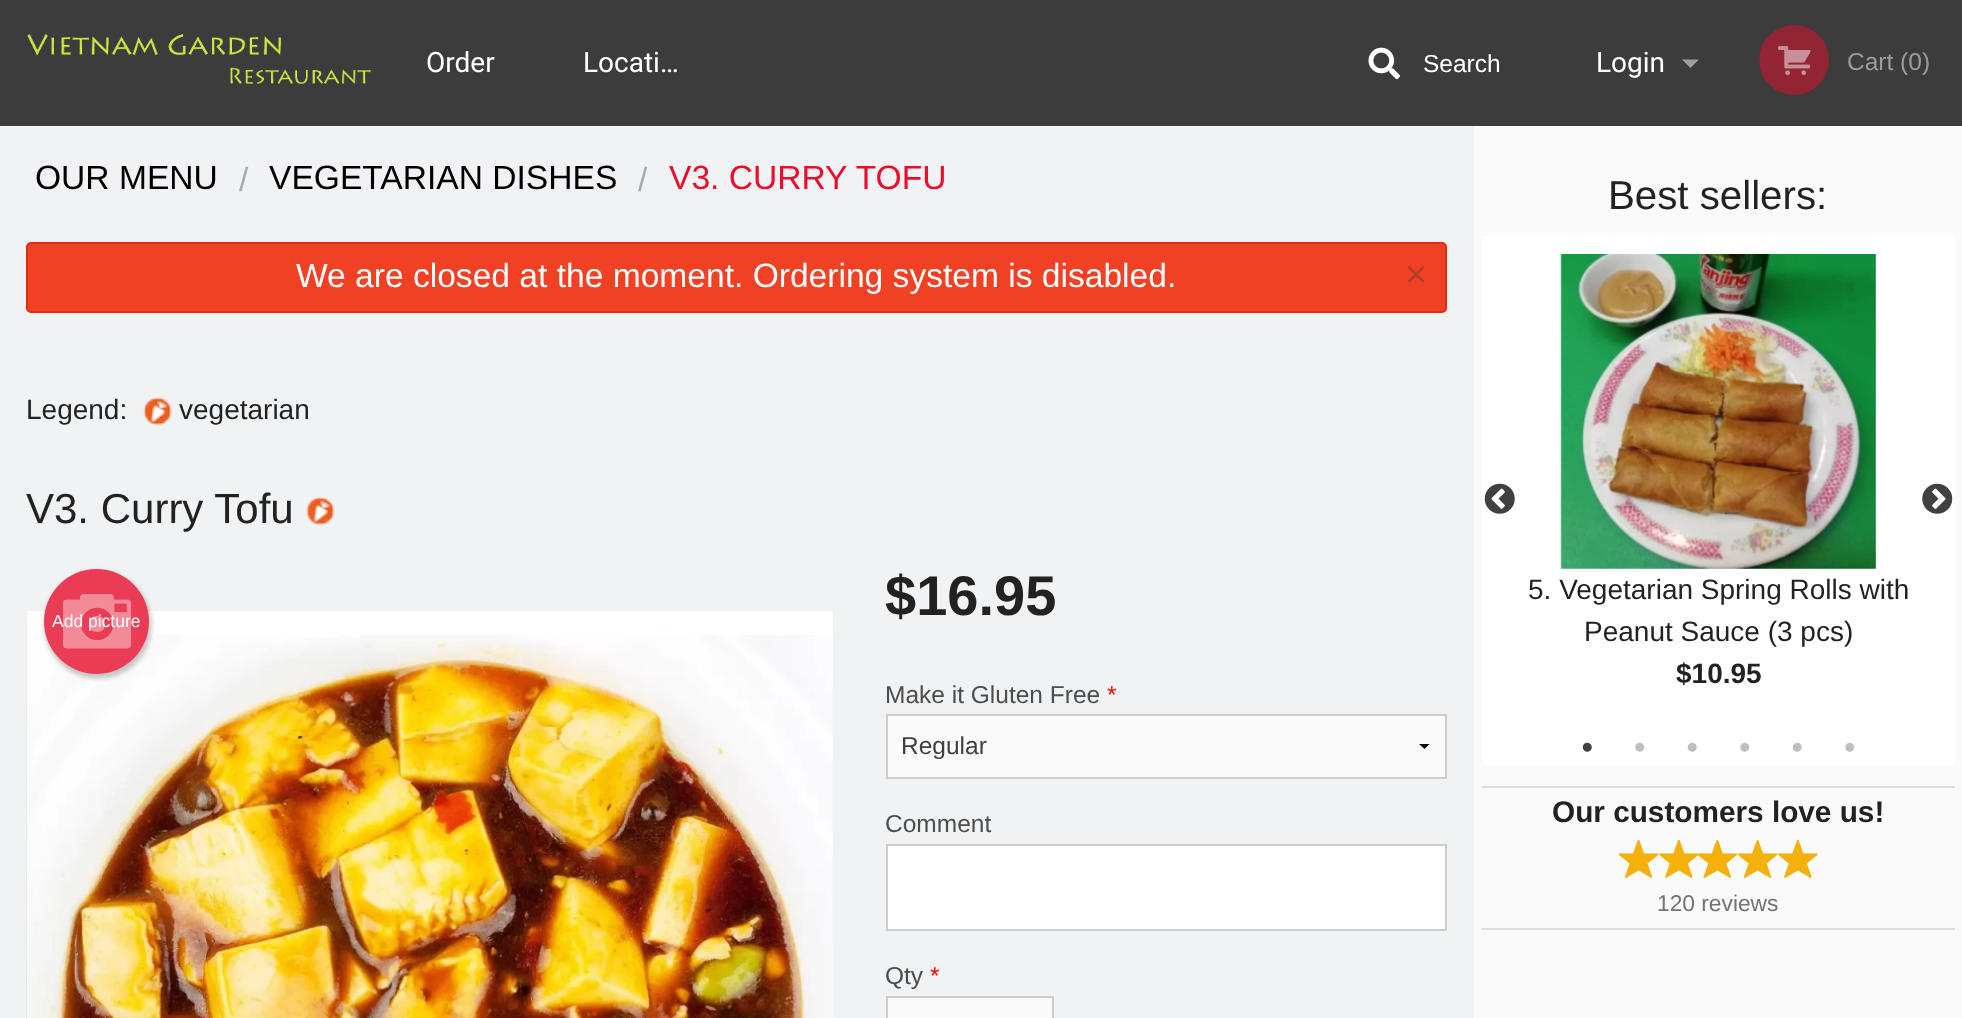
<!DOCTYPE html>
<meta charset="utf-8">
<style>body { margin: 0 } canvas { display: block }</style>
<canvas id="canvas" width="1962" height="1018"></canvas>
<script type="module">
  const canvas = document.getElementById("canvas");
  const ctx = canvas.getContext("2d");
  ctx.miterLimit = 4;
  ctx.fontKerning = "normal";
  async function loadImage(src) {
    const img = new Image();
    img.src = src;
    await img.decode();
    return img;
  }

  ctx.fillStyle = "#f1f2f3";
  ctx.fillRect(0, 0, 1962, 1018);
  ctx.fillStyle = "#3c3c3d";
  ctx.fillRect(0, 0, 1962, 126);
  ctx.drawImage(await loadImage("img1.png"), 27, 34, 344, 50);
  ctx.font = "28px Roboto";
  ctx.fillStyle = "#ffffff";
  ctx.fillText("Order", 426, 72);
  ctx.fillText("Locati…", 583, 72);
  ctx.drawImage(await loadImage("img2.png"), 1368, 47, 32, 33);
  ctx.font = "24.5px Liberation Sans";
  ctx.fillText("Search", 1423, 72);
  ctx.font = "28px Roboto";
  ctx.fillText("Login", 1596, 72);
  ctx.fillStyle = "#9e9e9e";
  ctx.beginPath();
  ctx.moveTo(1682, 59.5);
  ctx.lineTo(1699, 59.5);
  ctx.lineTo(1690.5, 68);
  ctx.closePath();
  ctx.fill();
  ctx.fillStyle = "#922434";
  ctx.beginPath();
  ctx.arc(1794, 60, 35, 0, Math.PI * 2);
  ctx.fill();
  ctx.drawImage(await loadImage("img3.png"), 1778, 46, 33, 29);
  ctx.font = "24.5px Liberation Sans";
  ctx.fillStyle = "#9c9c9c";
  ctx.fillText("Cart (0)", 1847, 70);
  ctx.font = "33.6px Liberation Sans";
  ctx.fillStyle = "#000000";
  ctx.fillText("OUR MENU", 35, 189);
  ctx.fillStyle = "#aaaaaa";
  ctx.fillText("/", 239, 191);
  ctx.fillStyle = "#000000";
  ctx.fillText("VEGETARIAN DISHES", 269, 189);
  ctx.fillStyle = "#aaaaaa";
  ctx.fillText("/", 638, 191);
  ctx.fillStyle = "#eb0c2b";
  ctx.fillText("V3. CURRY TOFU", 669, 189);
  ctx.fillStyle = "#f04124";
  ctx.beginPath();
  ctx.roundRect(27, 243, 1419, 69, 4);
  ctx.fill();
  ctx.strokeStyle = "#de2d0f";
  ctx.lineWidth = 2;
  ctx.stroke();
  ctx.fillStyle = "#ffffff";
  ctx.fillText("We are closed at the moment. Ordering system is disabled.", 296, 287);
  ctx.font = "38px Liberation Sans";
  ctx.fillStyle = "#b73d29";
  ctx.fillText("×", 1405, 287);
  ctx.font = "28px Liberation Sans";
  ctx.fillStyle = "#222222";
  ctx.fillText("Legend:", 26, 419);
  ctx.drawImage(await loadImage("img4.png"), 143, 397, 29, 29);
  ctx.fillText("vegetarian", 179, 419);
  ctx.font = "42px Liberation Sans";
  ctx.fillText("V3. Curry Tofu", 26, 523);
  ctx.drawImage(await loadImage("img5.png"), 306, 497, 29, 28);
  ctx.save();
  ctx.beginPath();
  ctx.rect(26, 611, 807, 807);
  ctx.clip();
  ctx.fillStyle = "rgba(0, 0, 0, 0.2)";
  ctx.filter = "blur(2px)";
  ctx.beginPath();
  ctx.rect(26, 613, 811, 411);
  ctx.fill();
  ctx.filter = "none";
  ctx.restore();
  ctx.drawImage(await loadImage("img6.png"), 26, 611, 807, 407);
  ctx.fillStyle = "rgba(0, 0, 0, 0.2)";
  ctx.filter = "blur(2px)";
  ctx.beginPath();
  ctx.roundRect(44, 571, 108, 108, 54);
  ctx.fill();
  ctx.filter = "none";
  ctx.fillStyle = "#ea3c54";
  ctx.beginPath();
  ctx.arc(96.5, 621.5, 52.5, 0, Math.PI * 2);
  ctx.fill();
  ctx.drawImage(await loadImage("img7.png"), 63, 594, 69, 55);
  ctx.font = "17.5px Liberation Sans";
  ctx.fillStyle = "#ffffff";
  ctx.fillText("Add picture", 52, 627);
  ctx.font = "bold 56px Liberation Sans";
  ctx.fillStyle = "#222222";
  ctx.fillText("$16.95", 885, 615);
  ctx.font = "24.5px Liberation Sans";
  ctx.fillStyle = "#4d4d4d";
  ctx.fillText("Make it Gluten Free", 885, 703);
  ctx.fillStyle = "#ff0000";
  ctx.fillText("*", 1107, 703);
  ctx.fillStyle = "#fafafa";
  ctx.fillRect(888, 716, 557, 61);
  ctx.fillStyle = "#000000";
  ctx.beginPath();
  ctx.moveTo(1429.5, 744);
  ctx.lineTo(1424.5, 749);
  ctx.lineTo(1419, 744);
  ctx.closePath();
  ctx.fill();
  ctx.strokeStyle = "#cccccc";
  ctx.strokeRect(887, 715, 559, 63);
  ctx.fillStyle = "#3f3f3f";
  ctx.fillText("Regular", 901, 754);
  ctx.fillStyle = "#4d4d4d";
  ctx.fillText("Comment", 885, 832);
  ctx.fillStyle = "#ffffff";
  ctx.beginPath();
  ctx.rect(887, 845, 559, 85);
  ctx.fill();
  ctx.stroke();
  ctx.fillStyle = "#4d4d4d";
  ctx.fillText("Qty", 885, 984);
  ctx.fillStyle = "#ff0000";
  ctx.fillText("*", 930, 984);
  ctx.fillStyle = "#fafafa";
  ctx.beginPath();
  ctx.rect(887, 997, 166, 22);
  ctx.fill();
  ctx.stroke();
  ctx.fillRect(1474, 126, 488, 892);
  ctx.font = "40.25px Liberation Sans";
  ctx.fillStyle = "#222222";
  ctx.fillText("Best sellers:", 1608, 209);
  ctx.fillStyle = "#ffffff";
  ctx.fillRect(1482, 236, 473, 529);
  ctx.drawImage(await loadImage("img8.png"), 1484, 483, 31, 31);
  ctx.drawImage(await loadImage("img9.png"), 1922, 483, 31, 31);
  ctx.drawImage(await loadImage("img10.png"), 1560, 254, 316, 315);
  ctx.font = "28px Liberation Sans";
  ctx.fillStyle = "#222222";
  ctx.fillText("5. Vegetarian Spring Rolls with", 1528, 599);
  ctx.fillText("Peanut Sauce (3 pcs)", 1584, 641);
  ctx.font = "bold 28px Liberation Sans";
  ctx.fillText("$10.95", 1676, 683);
  ctx.drawImage(await loadImage("img11.png"), 1582, 742, 10, 10);
  ctx.drawImage(await loadImage("img12.png"), 1635, 742, 10, 10);
  ctx.drawImage(await loadImage("img13.png"), 1687, 742, 10, 10);
  ctx.drawImage(await loadImage("img12.png"), 1740, 742, 10, 10);
  ctx.drawImage(await loadImage("img13.png"), 1792, 742, 10, 10);
  ctx.drawImage(await loadImage("img12.png"), 1845, 742, 10, 10);
  ctx.fillStyle = "#dddddd";
  ctx.fillRect(1482, 786, 473, 2);
  ctx.font = "bold 29.75px Liberation Sans";
  ctx.fillStyle = "#222222";
  ctx.fillText("Our customers love us!", 1552, 822);
  ctx.drawImage(await loadImage("img14.png"), 1618, 839, 41, 39);
  ctx.drawImage(await loadImage("img15.png"), 1659, 839, 40, 39);
  ctx.drawImage(await loadImage("img16.png"), 1697, 839, 41, 39);
  ctx.drawImage(await loadImage("img17.png"), 1737, 839, 41, 39);
  ctx.drawImage(await loadImage("img15.png"), 1778, 839, 40, 39);
  ctx.font = "22.75px Liberation Sans";
  ctx.fillStyle = "#737373";
  ctx.fillText("120 reviews", 1657, 911);
  ctx.fillStyle = "#dddddd";
  ctx.fillRect(1482, 928, 473, 2);
</script>
